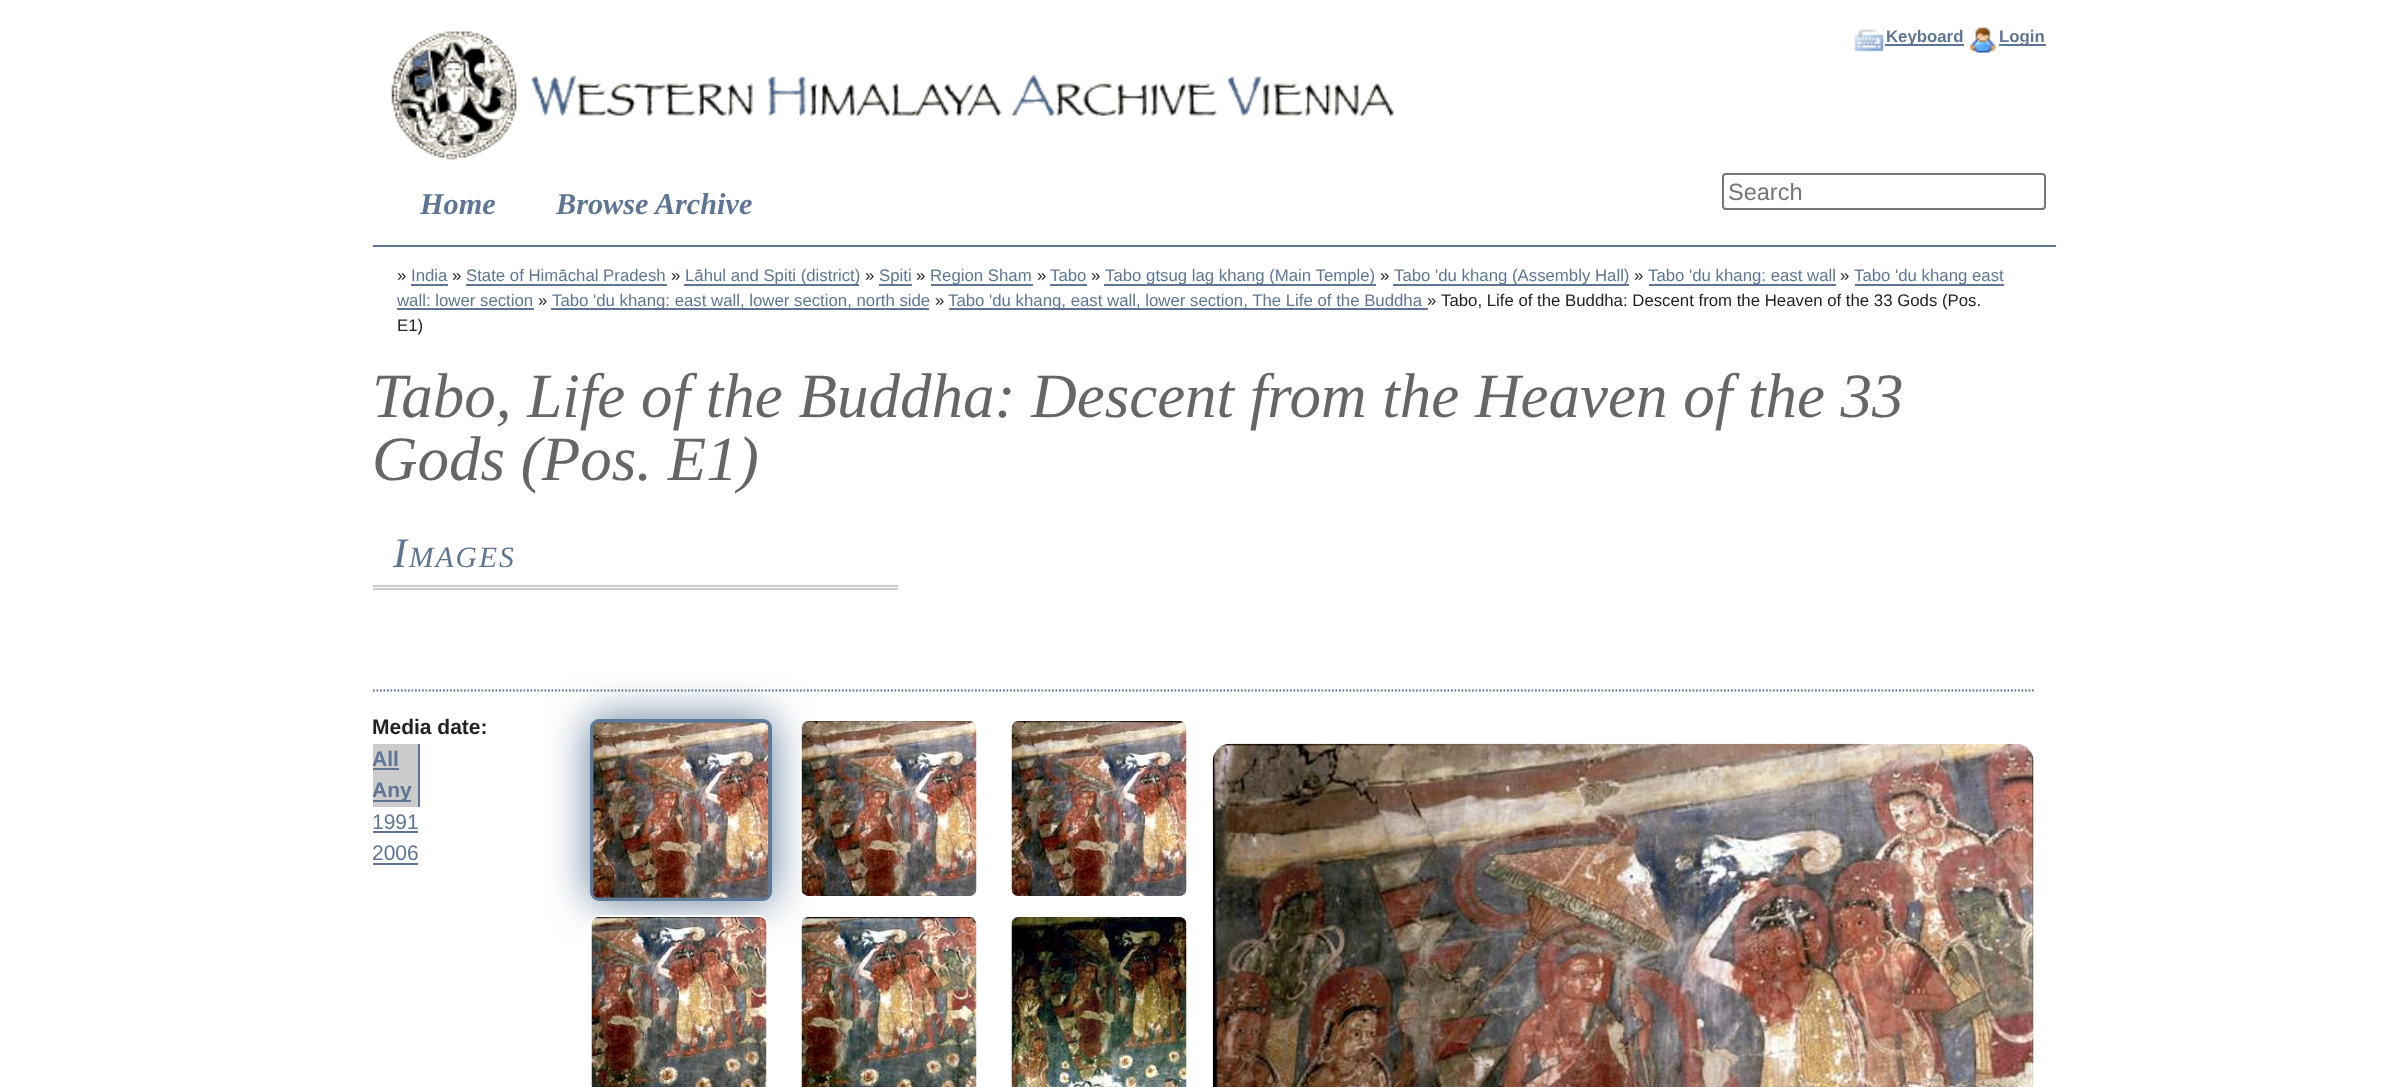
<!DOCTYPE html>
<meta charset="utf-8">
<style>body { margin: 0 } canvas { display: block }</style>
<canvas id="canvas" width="2405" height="1087"></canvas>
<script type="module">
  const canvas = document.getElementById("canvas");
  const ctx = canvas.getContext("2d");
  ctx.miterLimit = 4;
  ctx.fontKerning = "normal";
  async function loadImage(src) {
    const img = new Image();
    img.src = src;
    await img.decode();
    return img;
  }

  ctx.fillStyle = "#ffffff";
  ctx.fillRect(0, 0, 2405, 1087);
  ctx.fillStyle = "#5e7596";
  ctx.fillRect(373, 245, 1683, 2);
  ctx.drawImage(await loadImage("img1.png"), 391, 31, 1003, 129);
  ctx.drawImage(await loadImage("img2.png"), 1854, 29, 30, 23);
  ctx.fillRect(1885, 44, 79, 2);
  ctx.font = "bold 16.8px Liberation Sans";
  ctx.fillText("Keyboard", 1886, 42);
  ctx.drawImage(await loadImage("img3.png"), 1970, 27, 26, 26);
  ctx.fillRect(1999, 44, 47, 2);
  ctx.fillText("Login", 1999, 42);
  ctx.font = "italic bold 30.25px Liberation Serif";
  ctx.fillText("Home", 420, 214);
  ctx.fillText("Browse Archive", 556, 214);
  ctx.beginPath();
  ctx.roundRect(1723, 174, 322, 35, 3);
  ctx.strokeStyle = "#767676";
  ctx.lineWidth = 2;
  ctx.stroke();
  ctx.font = "23.5px Liberation Sans";
  ctx.fillStyle = "#757575";
  ctx.fillText("Search", 1728, 200);
  ctx.font = "16.8px Liberation Sans";
  ctx.fillStyle = "#222222";
  ctx.fillText("»", 397, 281);
  ctx.fillStyle = "#5e7596";
  ctx.fillText("India", 411, 281);
  ctx.fillRect(411, 284, 37, 2);
  ctx.fillStyle = "#222222";
  ctx.fillText("»", 452, 281);
  ctx.fillStyle = "#5e7596";
  ctx.fillText("State of Himāchal Pradesh", 466, 281);
  ctx.fillRect(466, 284, 201, 2);
  ctx.fillStyle = "#222222";
  ctx.fillText("»", 671, 281);
  ctx.fillStyle = "#5e7596";
  ctx.fillRect(684, 284, 175, 2);
  ctx.fillText("Lāhul and Spiti (district)", 685, 281);
  ctx.fillStyle = "#222222";
  ctx.fillText("»", 865, 281);
  ctx.fillStyle = "#5e7596";
  ctx.fillRect(879, 284, 33, 2);
  ctx.fillText("Spiti", 879, 281);
  ctx.fillStyle = "#222222";
  ctx.fillText("»", 916, 281);
  ctx.fillStyle = "#5e7596";
  ctx.fillRect(931, 284, 102, 2);
  ctx.fillText("Region Sham", 930, 281);
  ctx.fillStyle = "#222222";
  ctx.fillText("»", 1037, 281);
  ctx.fillStyle = "#5e7596";
  ctx.fillText("Tabo", 1050, 281);
  ctx.fillRect(1050, 284, 37, 2);
  ctx.fillStyle = "#222222";
  ctx.fillText("»", 1091, 281);
  ctx.fillStyle = "#5e7596";
  ctx.fillRect(1104, 284, 272, 2);
  ctx.fillText("Tabo gtsug lag khang (Main Temple)", 1105, 281);
  ctx.fillStyle = "#222222";
  ctx.fillText("»", 1380, 281);
  ctx.fillStyle = "#5e7596";
  ctx.fillRect(1393, 284, 236, 2);
  ctx.fillText("Tabo 'du khang (Assembly Hall)", 1394, 281);
  ctx.fillStyle = "#222222";
  ctx.fillText("»", 1634, 281);
  ctx.fillStyle = "#5e7596";
  ctx.fillRect(1649, 284, 187, 2);
  ctx.fillText("Tabo 'du khang: east wall", 1648, 281);
  ctx.fillStyle = "#222222";
  ctx.fillText("»", 1840, 281);
  ctx.fillStyle = "#5e7596";
  ctx.fillRect(1855, 284, 149, 2);
  ctx.fillText("Tabo 'du khang east", 1854, 281);
  ctx.fillText("wall: lower section", 397, 306);
  ctx.fillRect(397, 308, 137, 2);
  ctx.fillStyle = "#222222";
  ctx.fillText("»", 538, 306);
  ctx.fillStyle = "#5e7596";
  ctx.fillRect(551, 308, 378, 2);
  ctx.fillText("Tabo 'du khang: east wall, lower section, north side", 552, 306);
  ctx.fillStyle = "#222222";
  ctx.fillText("»", 935, 306);
  ctx.fillStyle = "#5e7596";
  ctx.fillRect(949, 308, 479, 2);
  ctx.fillText("Tabo 'du khang, east wall, lower section, The Life of the Buddha", 948, 306);
  ctx.fillStyle = "#222222";
  ctx.fillText("»", 1427, 306);
  ctx.fillText("Tabo, Life of the Buddha: Descent from the Heaven of the 33 Gods (Pos.", 1441, 306);
  ctx.fillText("E1)", 397, 331);
  ctx.font = "italic 63px Liberation Serif";
  ctx.fillStyle = "#666666";
  ctx.fillText("Tabo, Life of the Buddha: Descent from the Heaven of the 33", 372, 417);
  ctx.fillText("Gods (Pos. E1)", 372, 480);
  ctx.fillStyle = "#cccccc";
  ctx.fillRect(373, 585, 525, 2);
  ctx.fillRect(373, 588, 525, 2);
  ctx.letterSpacing = "2px";
  ctx.font = "italic 42px Liberation Serif";
  ctx.fillStyle = "#5e7596";
  ctx.fillText("I", 393, 567);
  ctx.font = "italic 29.5px Liberation Serif";
  ctx.fillText("MAGES", 409, 567);
  ctx.beginPath();
  ctx.moveTo(373, 690.5);
  ctx.lineTo(2035, 690.5);
  ctx.strokeStyle = "#5e7596";
  ctx.lineWidth = 1.8;
  ctx.setLineDash([1.75, 1.75]);
  ctx.stroke();
  ctx.letterSpacing = "0px";
  ctx.font = "bold 21px Liberation Sans";
  ctx.fillStyle = "#222222";
  ctx.fillText("Media date:", 372, 734);
  ctx.fillStyle = "#cccccc";
  ctx.fillRect(373, 744, 45, 63);
  ctx.fillStyle = "#5e7596";
  ctx.fillRect(418, 744, 2, 63);
  ctx.fillText("All", 372, 766);
  ctx.fillRect(373, 768, 26, 2);
  ctx.fillRect(373, 800, 38, 2);
  ctx.fillText("Any", 372, 797);
  ctx.font = "21px Liberation Sans";
  ctx.fillText("1991", 372, 829);
  ctx.fillRect(373, 831, 45, 2);
  ctx.fillText("2006", 372, 860);
  ctx.fillRect(373, 863, 45, 2);
  ctx.fillStyle = "#5e7996";
  ctx.filter = "blur(22px)";
  ctx.beginPath();
  ctx.roundRect(590, 719, 182, 182, 9);
  ctx.fill();
  ctx.filter = "none";
  ctx.beginPath();
  ctx.roundRect(592, 721, 178, 178, 7);
  ctx.strokeStyle = "#5e7996";
  ctx.lineWidth = 4;
  ctx.setLineDash([]);
  ctx.stroke();
  ctx.drawImage(await loadImage("img4.png"), 593, 722, 176, 176);
  ctx.beginPath();
  ctx.roundRect(801, 720, 176, 177, 8);
  ctx.strokeStyle = "#ffffff";
  ctx.lineWidth = 2;
  ctx.stroke();
  ctx.drawImage(await loadImage("img5.png"), 801, 721, 176, 175);
  ctx.drawImage(await loadImage("img6.png"), 1011, 721, 176, 175);
  ctx.beginPath();
  ctx.roundRect(591, 916, 176, 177, 8);
  ctx.stroke();
  ctx.drawImage(await loadImage("img7.png"), 591, 917, 176, 170);
  ctx.drawImage(await loadImage("img8.png"), 801, 917, 176, 170);
  ctx.drawImage(await loadImage("img9.png"), 1011, 917, 176, 170);
  ctx.drawImage(await loadImage("img10.png"), 1212, 743, 822, 344);
</script>
